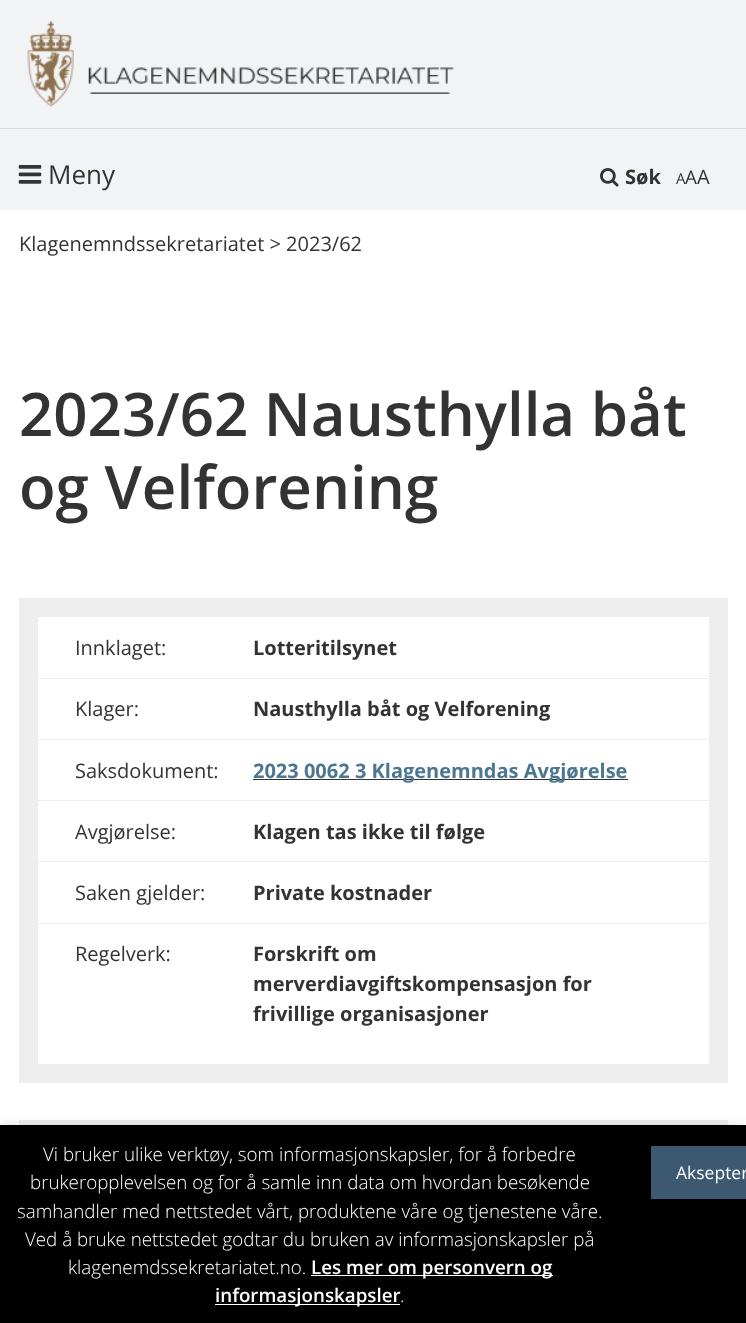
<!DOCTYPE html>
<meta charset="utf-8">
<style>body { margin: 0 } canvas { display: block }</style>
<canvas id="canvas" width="746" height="1323"></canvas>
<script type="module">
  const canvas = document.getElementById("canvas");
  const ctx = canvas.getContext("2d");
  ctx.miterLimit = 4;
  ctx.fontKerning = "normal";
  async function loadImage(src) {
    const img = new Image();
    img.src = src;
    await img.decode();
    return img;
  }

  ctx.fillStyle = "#ffffff";
  ctx.fillRect(0, 0, 746, 1323);
  ctx.fillStyle = "#f2f3f4";
  ctx.fillRect(0, 0, 746, 210);
  ctx.drawImage(await loadImage("img1.png"), 27, 21, 427, 86);
  ctx.fillStyle = "#d9dbdb";
  ctx.fillRect(0, 128, 746, 1);
  ctx.drawImage(await loadImage("img2.png"), 18, 165, 24, 19);
  ctx.font = "26px Open Sans";
  ctx.fillStyle = "#333333";
  ctx.fillText("Meny", 48, 184);
  ctx.drawImage(await loadImage("img3.png"), 600, 168, 19, 19);
  ctx.font = "bold 20px Open Sans";
  ctx.fillText("Søk", 625, 184);
  ctx.font = "15px Open Sans";
  ctx.fillText("A", 676, 184);
  ctx.font = "18.75px Open Sans";
  ctx.fillText("A", 685, 184);
  ctx.font = "20px Open Sans";
  ctx.fillText("A", 697, 184);
  ctx.fillText("Klagenemndssekretariatet > 2023/62", 19, 251);
  ctx.font = "600 60px Open Sans";
  ctx.fillText("2023/62 Nausthylla båt", 19, 436);
  ctx.fillText("og Velforening", 19, 509);
  ctx.strokeStyle = "#eeeeee";
  ctx.lineWidth = 19;
  ctx.strokeRect(28.5, 607.5, 690, 466);
  ctx.fillStyle = "#ffffff";
  ctx.beginPath();
  ctx.roundRect(38, 616, 671, 428, 6);
  ctx.fill();
  ctx.font = "20px Open Sans";
  ctx.fillStyle = "#333333";
  ctx.fillText("Innklaget:", 75, 655);
  ctx.fillStyle = "#eeeeee";
  ctx.fillRect(38, 616, 671, 1);
  ctx.font = "bold 20px Open Sans";
  ctx.fillStyle = "#333333";
  ctx.fillText("Lotteritilsynet", 253, 655);
  ctx.font = "20px Open Sans";
  ctx.fillText("Klager:", 75, 716);
  ctx.fillStyle = "#eeeeee";
  ctx.fillRect(38, 678, 671, 1);
  ctx.font = "bold 20px Open Sans";
  ctx.fillStyle = "#333333";
  ctx.fillText("Nausthylla båt og Velforening", 253, 716);
  ctx.font = "20px Open Sans";
  ctx.fillText("Saksdokument:", 75, 778);
  ctx.fillStyle = "#eeeeee";
  ctx.fillRect(38, 739, 671, 1);
  ctx.fillStyle = "#333333";
  ctx.fillRect(253, 779, 375, 1);
  ctx.font = "bold 20px Open Sans";
  ctx.fillStyle = "#4c7791";
  ctx.fillText("2023 0062 3 Klagenemndas Avgjørelse", 253, 778);
  ctx.font = "20px Open Sans";
  ctx.fillStyle = "#333333";
  ctx.fillText("Avgjørelse:", 75, 839);
  ctx.fillStyle = "#eeeeee";
  ctx.fillRect(38, 800, 671, 1);
  ctx.font = "bold 20px Open Sans";
  ctx.fillStyle = "#333333";
  ctx.fillText("Klagen tas ikke til følge", 253, 839);
  ctx.font = "20px Open Sans";
  ctx.fillText("Saken gjelder:", 75, 900);
  ctx.fillStyle = "#eeeeee";
  ctx.fillRect(38, 861, 671, 1);
  ctx.font = "bold 20px Open Sans";
  ctx.fillStyle = "#333333";
  ctx.fillText("Private kostnader", 253, 900);
  ctx.font = "20px Open Sans";
  ctx.fillText("Regelverk:", 75, 961);
  ctx.fillStyle = "#eeeeee";
  ctx.fillRect(38, 923, 671, 1);
  ctx.font = "bold 20px Open Sans";
  ctx.fillStyle = "#333333";
  ctx.fillText("Forskrift om", 253, 961);
  ctx.fillText("merverdiavgiftskompensasjon for", 253, 991);
  ctx.fillText("frivillige organisasjoner", 253, 1021);
  ctx.strokeRect(28.5, 1129.5, 690, 126);
  ctx.fillStyle = "rgba(172, 171, 171, 0.3)";
  ctx.filter = "blur(6px)";
  ctx.beginPath();
  ctx.rect(0, 1124, 746, 199);
  ctx.fill();
  ctx.filter = "none";
  ctx.fillStyle = "#000000";
  ctx.fillRect(0, 1125, 746, 198);
  ctx.font = "300 18.75px Open Sans";
  ctx.fillStyle = "#ffffff";
  ctx.fillText("Vi bruker ulike verktøy, som informasjonskapsler, for å forbedre", 43, 1161);
  ctx.fillText("brukeropplevelsen og for å samle inn data om hvordan besøkende", 30, 1189);
  ctx.fillText("samhandler med nettstedet vårt, produktene våre og tjenestene våre.", 17, 1218);
  ctx.fillText("Ved å bruke nettstedet godtar du bruken av informasjonskapsler på", 25, 1246);
  ctx.fillText("klagenemdssekretariatet.no.", 68, 1274);
  ctx.fillRect(311, 1275, 242, 1);
  ctx.font = "600 18.75px Open Sans";
  ctx.fillText("Les mer om personvern og", 311, 1274);
  ctx.fillRect(215, 1304, 185, 1);
  ctx.fillText("informasjonskapsler", 215, 1302);
  ctx.font = "300 18.75px Open Sans";
  ctx.fillText(".", 400, 1302);
  ctx.fillStyle = "#3d5871";
  ctx.fillRect(651, 1146, 95, 53);
  ctx.font = "17.5px Open Sans";
  ctx.fillStyle = "#ffffff";
  ctx.fillText("Aksepter", 676, 1179);
</script>
